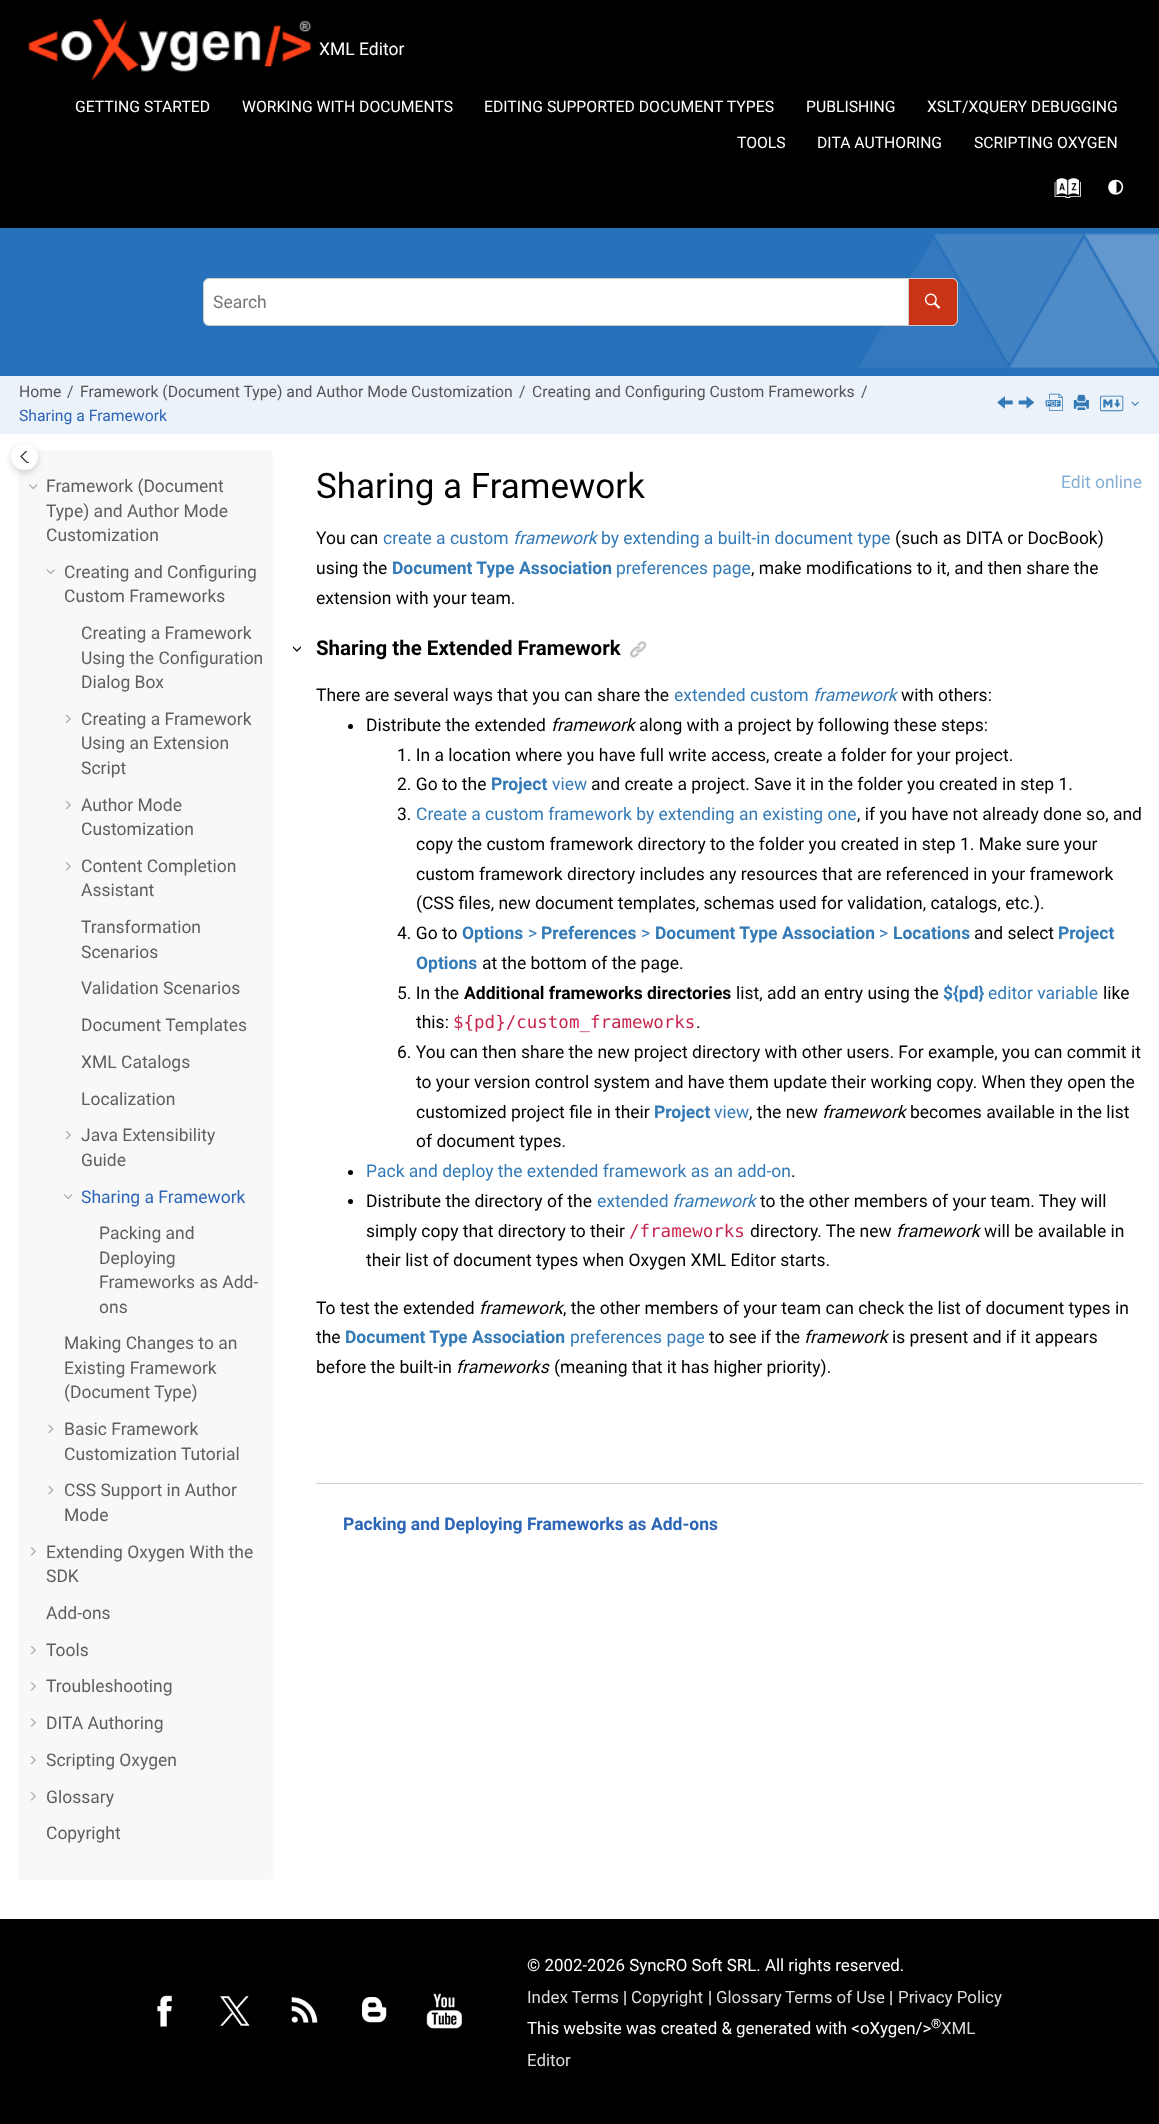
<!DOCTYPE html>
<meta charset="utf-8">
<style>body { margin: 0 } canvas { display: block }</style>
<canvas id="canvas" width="1159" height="2124"></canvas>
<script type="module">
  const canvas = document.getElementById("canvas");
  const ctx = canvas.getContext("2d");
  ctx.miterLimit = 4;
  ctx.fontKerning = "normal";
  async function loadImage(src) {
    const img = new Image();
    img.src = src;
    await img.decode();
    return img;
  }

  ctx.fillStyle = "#ffffff";
  ctx.fillRect(0, 0, 1159, 2124);
  ctx.fillStyle = "#000000";
  ctx.fillRect(0, 0, 1159, 228);
  ctx.drawImage(await loadImage("img1.png"), 28, 18, 284, 63);
  ctx.font = "17.5px Roboto";
  ctx.fillStyle = "#ffffff";
  ctx.fillText("XML Editor", 319, 55);
  ctx.font = "15.75px Roboto";
  ctx.fillText("GETTING STARTED", 75, 112);
  ctx.fillText("WORKING WITH DOCUMENTS", 242, 112);
  ctx.fillText("EDITING SUPPORTED DOCUMENT TYPES", 484, 112);
  ctx.fillText("PUBLISHING", 806, 112);
  ctx.fillText("XSLT/XQUERY DEBUGGING", 927, 112);
  ctx.fillText("TOOLS", 737, 148);
  ctx.fillText("DITA AUTHORING", 817, 148);
  ctx.fillText("SCRIPTING OXYGEN", 974, 148);
  ctx.drawImage(await loadImage("img2.png"), 1054, 178, 27, 20);
  ctx.font = "15.75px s";
  ctx.fillText("4", 1110, 195);
  ctx.fillStyle = "#2771bb";
  ctx.fillRect(0, 228, 1159, 148);
  ctx.drawImage(await loadImage("img3.png"), 859, 233, 300, 136);
  ctx.fillStyle = "#ffffff";
  ctx.beginPath();
  ctx.roundRect(203.5, 278.5, 754, 47, 5.5);
  ctx.fill();
  ctx.strokeStyle = "#cccccc";
  ctx.stroke();
  ctx.font = "17.5px Roboto";
  ctx.fillStyle = "#757575";
  ctx.fillText("Search", 213, 308);
  ctx.fillStyle = "#c93416";
  ctx.beginPath();
  ctx.roundRect(908.5, 278.5, 49, 47, [0, 5.5, 5.5, 0]);
  ctx.fill();
  ctx.stroke();
  ctx.drawImage(await loadImage("img4.png"), 924, 293, 17, 16);
  ctx.fillStyle = "#ecf2f9";
  ctx.fillRect(0, 376, 1159, 58);
  ctx.font = "15.75px Roboto";
  ctx.fillStyle = "#555555";
  ctx.fillText("Home", 19, 397);
  ctx.fillText("/", 67, 397);
  ctx.fillText("Framework (Document Type) and Author Mode Customization", 80, 397);
  ctx.fillText("/", 519, 397);
  ctx.fillText("Creating and Configuring Custom Frameworks", 532, 397);
  ctx.fillText("/", 861, 397);
  ctx.fillStyle = "#2e66b7";
  ctx.fillText("Sharing a Framework", 19, 421);
  ctx.drawImage(await loadImage("img5.png"), 997, 396, 16, 13);
  ctx.drawImage(await loadImage("img6.png"), 1018, 396, 16, 13);
  ctx.font = "17.5px s";
  ctx.fillStyle = "#337ab7";
  ctx.fillText("1", 1048, 411);
  ctx.drawImage(await loadImage("img7.png"), 1073, 394, 16, 16);
  ctx.font = "24px s";
  ctx.fillText("7", 1103, 416);
  ctx.drawImage(await loadImage("img8.png"), 1131, 401, 8, 5);
  ctx.fillStyle = "#f8f8f8";
  ctx.beginPath();
  ctx.roundRect(18, 450, 255, 1430, 4);
  ctx.fill();
  ctx.fillStyle = "rgba(0, 0, 0, 0.16)";
  ctx.filter = "blur(3px)";
  ctx.beginPath();
  ctx.roundRect(11, 446, 27, 27, 13.5);
  ctx.fill();
  ctx.filter = "none";
  ctx.fillStyle = "#ffffff";
  ctx.beginPath();
  ctx.roundRect(11, 444, 27, 26, 13);
  ctx.fill();
  ctx.save();
  ctx.beginPath();
  ctx.rect(20, 451, 9, 12);
  ctx.clip();
  ctx.beginPath();
  ctx.moveTo(28, 449.5);
  ctx.lineTo(35, 456.5);
  ctx.lineTo(28, 463.5);
  ctx.lineTo(21, 456.5);
  ctx.closePath();
  ctx.strokeStyle = "#343a40";
  ctx.lineWidth = 1.3;
  ctx.stroke();
  ctx.restore();
  ctx.drawImage(await loadImage("img9.png"), 29, 484, 9, 6);
  ctx.font = "17.5px Roboto";
  ctx.fillStyle = "#5f5f5f";
  ctx.fillText("Framework (Document", 46, 492);
  ctx.fillText("Type) and Author Mode", 46, 517);
  ctx.fillText("Customization", 46, 541);
  ctx.drawImage(await loadImage("img10.png"), 46, 569, 9, 6);
  ctx.fillText("Creating and Configuring", 64, 578);
  ctx.fillText("Custom Frameworks", 64, 602);
  ctx.fillText("Creating a Framework", 81, 639);
  ctx.fillText("Using the Configuration", 81, 664);
  ctx.fillText("Dialog Box", 81, 688);
  ctx.drawImage(await loadImage("img11.png"), 65, 714, 6, 9);
  ctx.fillText("Creating a Framework", 81, 725);
  ctx.fillText("Using an Extension", 81, 749);
  ctx.fillText("Script", 81, 774);
  ctx.drawImage(await loadImage("img12.png"), 65, 801, 6, 9);
  ctx.fillText("Author Mode", 81, 811);
  ctx.fillText("Customization", 81, 835);
  ctx.drawImage(await loadImage("img13.png"), 65, 862, 6, 9);
  ctx.fillText("Content Completion", 81, 872);
  ctx.fillText("Assistant", 81, 896);
  ctx.fillText("Transformation", 81, 933);
  ctx.fillText("Scenarios", 81, 958);
  ctx.fillText("Validation Scenarios", 81, 994);
  ctx.fillText("Document Templates", 81, 1031);
  ctx.fillText("XML Catalogs", 81, 1068);
  ctx.fillText("Localization", 81, 1105);
  ctx.drawImage(await loadImage("img12.png"), 65, 1131, 6, 9);
  ctx.fillText("Java Extensibility", 81, 1141);
  ctx.fillText("Guide", 81, 1166);
  ctx.drawImage(await loadImage("img9.png"), 64, 1194, 9, 6);
  ctx.fillStyle = "#2e66b7";
  ctx.fillText("Sharing a Framework", 81, 1203);
  ctx.fillStyle = "#5f5f5f";
  ctx.fillText("Packing and", 99, 1239);
  ctx.fillText("Deploying", 99, 1264);
  ctx.fillText("Frameworks as Add-", 99, 1288);
  ctx.fillText("ons", 99, 1313);
  ctx.fillText("Making Changes to an", 64, 1349);
  ctx.fillText("Existing Framework", 64, 1374);
  ctx.fillText("(Document Type)", 64, 1398);
  ctx.drawImage(await loadImage("img14.png"), 48, 1424, 6, 9);
  ctx.fillText("Basic Framework", 64, 1435);
  ctx.fillText("Customization Tutorial", 64, 1460);
  ctx.drawImage(await loadImage("img15.png"), 48, 1486, 6, 9);
  ctx.fillText("CSS Support in Author", 64, 1496);
  ctx.fillText("Mode", 64, 1521);
  ctx.drawImage(await loadImage("img13.png"), 30, 1547, 6, 9);
  ctx.fillText("Extending Oxygen With the", 46, 1558);
  ctx.fillText("SDK", 46, 1582);
  ctx.fillText("Add-ons", 46, 1619);
  ctx.drawImage(await loadImage("img12.png"), 30, 1646, 6, 9);
  ctx.fillText("Tools", 46, 1656);
  ctx.drawImage(await loadImage("img13.png"), 30, 1682, 6, 9);
  ctx.fillText("Troubleshooting", 46, 1692);
  ctx.drawImage(await loadImage("img16.png"), 30, 1718, 6, 9);
  ctx.fillText("DITA Authoring", 46, 1729);
  ctx.drawImage(await loadImage("img12.png"), 30, 1756, 6, 9);
  ctx.fillText("Scripting Oxygen", 46, 1766);
  ctx.drawImage(await loadImage("img13.png"), 30, 1792, 6, 9);
  ctx.fillText("Glossary", 46, 1803);
  ctx.fillText("Copyright", 46, 1839);
  ctx.font = "35px Roboto";
  ctx.fillStyle = "#000000";
  ctx.fillText("Sharing a Framework", 316, 498);
  ctx.font = "17.5px Roboto";
  ctx.fillStyle = "#85afd4";
  ctx.fillText("Edit online", 1061, 488);
  ctx.fillStyle = "#000000";
  ctx.fillText("You can", 316, 544);
  ctx.fillStyle = "#337ab7";
  ctx.fillText("create a custom", 383, 544);
  ctx.font = "italic 17.5px Roboto";
  ctx.fillText("framework", 513, 544);
  ctx.font = "17.5px Roboto";
  ctx.fillText("by extending a built-in document type", 601, 544);
  ctx.fillStyle = "#000000";
  ctx.fillText("(such as DITA or DocBook)", 895, 544);
  ctx.fillText("using the", 316, 574);
  ctx.font = "bold 17.5px Roboto";
  ctx.fillStyle = "#337ab7";
  ctx.fillText("Document Type Association", 392, 574);
  ctx.font = "17.5px Roboto";
  ctx.fillText("preferences page", 616, 574);
  ctx.fillStyle = "#000000";
  ctx.fillText(", make modifications to it, and then share the", 751, 574);
  ctx.fillText("extension with your team.", 316, 604);
  ctx.drawImage(await loadImage("img17.png"), 293, 646, 8, 6);
  ctx.font = "bold 20.5px Roboto";
  ctx.fillText("Sharing the Extended Framework", 316, 655);
  ctx.drawImage(await loadImage("img18.png"), 630, 641, 17, 17);
  ctx.font = "17.5px Roboto";
  ctx.fillText("There are several ways that you can share the", 316, 701);
  ctx.fillStyle = "#337ab7";
  ctx.fillText("extended custom", 674, 701);
  ctx.font = "italic 17.5px Roboto";
  ctx.fillText("framework", 813, 701);
  ctx.font = "17.5px Roboto";
  ctx.fillStyle = "#000000";
  ctx.fillText("with others:", 901, 701);
  ctx.beginPath();
  ctx.arc(350.5, 726.5, 2.5, 0, Math.PI * 2);
  ctx.fill();
  ctx.fillText("Distribute the extended", 366, 731);
  ctx.font = "italic 17.5px Roboto";
  ctx.fillText("framework", 551, 731);
  ctx.font = "17.5px Roboto";
  ctx.fillText("along with a project by following these steps:", 639, 731);
  ctx.fillText("1. In a location where you have full write access, create a folder for your project.", 397, 761);
  ctx.fillText("2. Go to the", 397, 790);
  ctx.font = "bold 17.5px Roboto";
  ctx.fillStyle = "#337ab7";
  ctx.fillText("Project", 491, 790);
  ctx.font = "17.5px Roboto";
  ctx.fillText("view", 552, 790);
  ctx.fillStyle = "#000000";
  ctx.fillText("and create a project. Save it in the folder you created in step 1.", 591, 790);
  ctx.fillText("3.", 397, 820);
  ctx.fillStyle = "#337ab7";
  ctx.fillText("Create a custom framework by extending an existing one", 416, 820);
  ctx.fillStyle = "#000000";
  ctx.fillText(", if you have not already done so, and", 857, 820);
  ctx.fillText("copy the custom framework directory to the folder you created in step 1. Make sure your", 416, 850);
  ctx.fillText("custom framework directory includes any resources that are referenced in your framework", 416, 880);
  ctx.fillText("(CSS files, new document templates, schemas used for validation, catalogs, etc.).", 416, 909);
  ctx.fillText("4. Go to", 397, 939);
  ctx.font = "bold 17.5px Roboto";
  ctx.fillStyle = "#337ab7";
  ctx.fillText("Options", 462, 939);
  ctx.font = "17.5px Roboto";
  ctx.fillText(">", 528, 939);
  ctx.font = "bold 17.5px Roboto";
  ctx.fillText("Preferences", 541, 939);
  ctx.font = "17.5px Roboto";
  ctx.fillText(">", 641, 939);
  ctx.font = "bold 17.5px Roboto";
  ctx.fillText("Document Type Association", 655, 939);
  ctx.font = "17.5px Roboto";
  ctx.fillText(">", 879, 939);
  ctx.font = "bold 17.5px Roboto";
  ctx.fillText("Locations", 893, 939);
  ctx.font = "17.5px Roboto";
  ctx.fillStyle = "#000000";
  ctx.fillText("and select", 974, 939);
  ctx.font = "bold 17.5px Roboto";
  ctx.fillStyle = "#337ab7";
  ctx.fillText("Project", 1058, 939);
  ctx.fillText("Options", 416, 969);
  ctx.font = "17.5px Roboto";
  ctx.fillStyle = "#000000";
  ctx.fillText("at the bottom of the page.", 482, 969);
  ctx.fillText("5. In the", 397, 999);
  ctx.font = "bold 17.5px Roboto";
  ctx.fillText("Additional frameworks directories", 464, 999);
  ctx.font = "17.5px Roboto";
  ctx.fillText("list, add an entry using the", 736, 999);
  ctx.font = "bold 17.5px Roboto";
  ctx.fillStyle = "#337ab7";
  ctx.fillText("${pd}", 943, 999);
  ctx.font = "17.5px Roboto";
  ctx.fillText("editor variable", 988, 999);
  ctx.fillStyle = "#000000";
  ctx.fillText("like", 1103, 999);
  ctx.fillText("this:", 416, 1028);
  ctx.font = "17.5px DejaVu Sans Mono";
  ctx.fillStyle = "#c7254e";
  ctx.fillText("${pd}/custom_frameworks", 453, 1028);
  ctx.font = "17.5px Roboto";
  ctx.fillStyle = "#000000";
  ctx.fillText(".", 696, 1028);
  ctx.fillText("6. You can then share the new project directory with other users. For example, you can commit it", 397, 1058);
  ctx.fillText("to your version control system and have them update their working copy. When they open the", 416, 1088);
  ctx.fillText("customized project file in their", 416, 1118);
  ctx.font = "bold 17.5px Roboto";
  ctx.fillStyle = "#337ab7";
  ctx.fillText("Project", 654, 1118);
  ctx.font = "17.5px Roboto";
  ctx.fillText("view", 714, 1118);
  ctx.fillStyle = "#000000";
  ctx.fillText(", the new", 749, 1118);
  ctx.font = "italic 17.5px Roboto";
  ctx.fillText("framework", 822, 1118);
  ctx.font = "17.5px Roboto";
  ctx.fillText("becomes available in the list", 910, 1118);
  ctx.fillText("of document types.", 416, 1147);
  ctx.beginPath();
  ctx.arc(350.5, 1172.5, 2.5, 0, Math.PI * 2);
  ctx.fill();
  ctx.fillStyle = "#337ab7";
  ctx.fillText("Pack and deploy the extended framework as an add-on", 366, 1177);
  ctx.fillStyle = "#000000";
  ctx.fillText(".", 791, 1177);
  ctx.beginPath();
  ctx.arc(350.5, 1201.5, 2.5, 0, Math.PI * 2);
  ctx.fill();
  ctx.fillText("Distribute the directory of the", 366, 1207);
  ctx.fillStyle = "#337ab7";
  ctx.fillText("extended", 597, 1207);
  ctx.font = "italic 17.5px Roboto";
  ctx.fillText("framework", 672, 1207);
  ctx.font = "17.5px Roboto";
  ctx.fillStyle = "#000000";
  ctx.fillText("to the other members of your team. They will", 760, 1207);
  ctx.fillText("simply copy that directory to their", 366, 1237);
  ctx.font = "17.5px DejaVu Sans Mono";
  ctx.fillStyle = "#c7254e";
  ctx.fillText("/frameworks", 629, 1237);
  ctx.font = "17.5px Roboto";
  ctx.fillStyle = "#000000";
  ctx.fillText("directory. The new", 750, 1237);
  ctx.font = "italic 17.5px Roboto";
  ctx.fillText("framework", 896, 1237);
  ctx.font = "17.5px Roboto";
  ctx.fillText("will be available in", 984, 1237);
  ctx.fillText("their list of document types when Oxygen XML Editor starts.", 366, 1266);
  ctx.fillText("To test the extended", 316, 1314);
  ctx.font = "italic 17.5px Roboto";
  ctx.fillText("framework", 479, 1314);
  ctx.font = "17.5px Roboto";
  ctx.fillText(", the other members of your team can check the list of document types in", 563, 1314);
  ctx.fillText("the", 316, 1343);
  ctx.font = "bold 17.5px Roboto";
  ctx.fillStyle = "#337ab7";
  ctx.fillText("Document Type Association", 345, 1343);
  ctx.font = "17.5px Roboto";
  ctx.fillText("preferences page", 570, 1343);
  ctx.fillStyle = "#000000";
  ctx.fillText("to see if the", 709, 1343);
  ctx.font = "italic 17.5px Roboto";
  ctx.fillText("framework", 804, 1343);
  ctx.font = "17.5px Roboto";
  ctx.fillText("is present and if it appears", 892, 1343);
  ctx.fillText("before the built-in", 316, 1373);
  ctx.font = "italic 17.5px Roboto";
  ctx.fillText("frameworks", 456, 1373);
  ctx.font = "17.5px Roboto";
  ctx.fillText("(meaning that it has higher priority).", 554, 1373);
  ctx.fillStyle = "#cccccc";
  ctx.fillRect(316, 1483, 827, 1);
  ctx.font = "bold 17.5px Roboto";
  ctx.fillStyle = "#2e66b7";
  ctx.fillText("Packing and Deploying Frameworks as Add-ons", 343, 1530);
  ctx.fillStyle = "#000000";
  ctx.fillRect(0, 1919, 1159, 205);
  ctx.drawImage(await loadImage("img19.png"), 157, 1995, 15, 32);
  ctx.drawImage(await loadImage("img20.png"), 220, 1996, 30, 30);
  ctx.drawImage(await loadImage("img21.png"), 291, 1997, 27, 26);
  ctx.drawImage(await loadImage("img22.png"), 362, 1997, 25, 26);
  ctx.drawImage(await loadImage("img23.png"), 426, 1993, 36, 36);
  ctx.font = "16.9px Roboto";
  ctx.fillStyle = "#ffffff";
  ctx.fillText("© 2002-2026 SyncRO Soft SRL. All rights reserved.", 527, 1971);
  ctx.fillStyle = "#dddddd";
  ctx.fillText("Index Terms", 527, 2003);
  ctx.fillStyle = "#ffffff";
  ctx.fillText("|", 623, 2003);
  ctx.fillStyle = "#dddddd";
  ctx.fillText("Copyright", 631, 2003);
  ctx.fillStyle = "#ffffff";
  ctx.fillText("|", 708, 2003);
  ctx.fillStyle = "#dddddd";
  ctx.fillText("Glossary", 716, 2003);
  ctx.fillText("Terms of Use", 785, 2003);
  ctx.fillStyle = "#ffffff";
  ctx.fillText("|", 889, 2003);
  ctx.fillStyle = "#dddddd";
  ctx.fillText("Privacy Policy", 898, 2003);
  ctx.fillStyle = "#ffffff";
  ctx.fillText("This website was created & generated with <oXygen/>", 527, 2034);
  ctx.font = "13px Roboto";
  ctx.fillText("®", 931, 2028);
  ctx.font = "16.9px Roboto";
  ctx.fillStyle = "#dddddd";
  ctx.fillText("XML", 941, 2034);
  ctx.fillText("Editor", 527, 2066);
</script>
